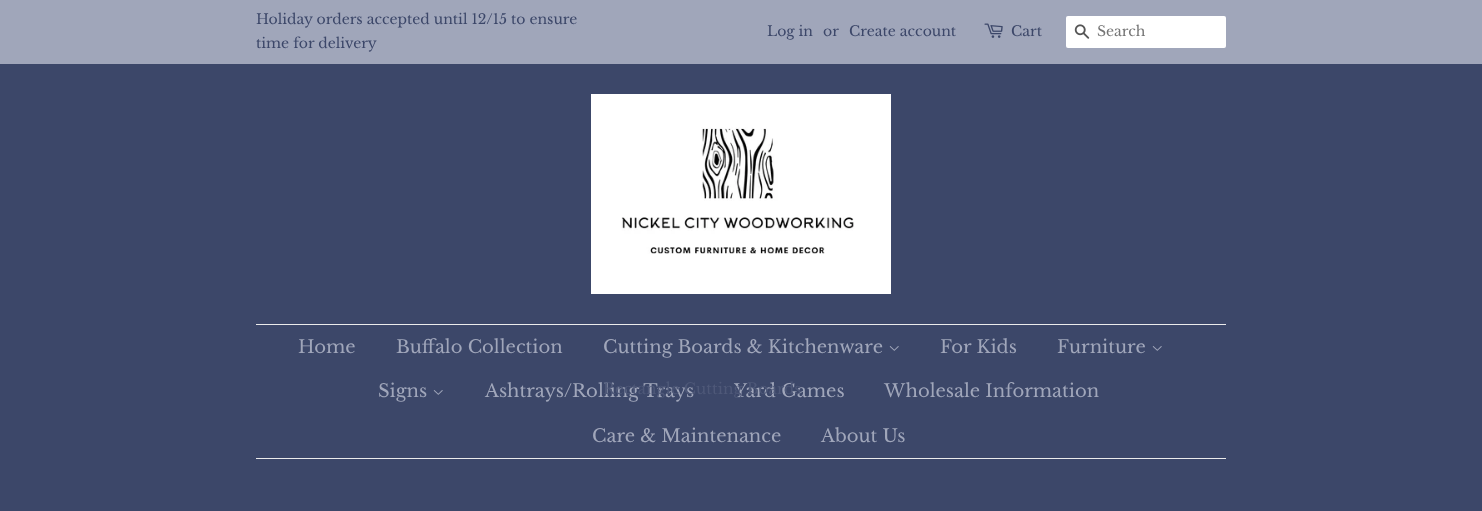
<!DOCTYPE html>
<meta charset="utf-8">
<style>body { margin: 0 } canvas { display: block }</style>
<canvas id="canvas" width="1482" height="511"></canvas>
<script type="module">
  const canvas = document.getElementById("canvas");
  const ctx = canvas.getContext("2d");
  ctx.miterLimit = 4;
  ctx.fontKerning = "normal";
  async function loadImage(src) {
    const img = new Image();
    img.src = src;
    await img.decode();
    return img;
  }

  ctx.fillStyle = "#3c4769";
  ctx.fillRect(0, 0, 1482, 511);
  ctx.fillStyle = "#a0a6ba";
  ctx.fillRect(0, 0, 1482, 64);
  ctx.font = "14px Libre Baskerville";
  ctx.fillStyle = "#3c4769";
  ctx.fillText("Holiday orders accepted until 12/15 to ensure", 256, 24);
  ctx.fillText("time for delivery", 256, 48);
  ctx.fillText("Log in", 767, 36);
  ctx.fillText("or", 823, 36);
  ctx.fillText("Create account", 849, 36);
  ctx.drawImage(await loadImage("img1.png"), 984, 23, 19, 15);
  ctx.fillText("Cart", 1011, 36);
  ctx.fillStyle = "#ffffff";
  ctx.beginPath();
  ctx.roundRect(1066, 16, 160, 32, 2);
  ctx.fill();
  ctx.drawImage(await loadImage("img2.png"), 1074, 24, 16, 15);
  ctx.fillStyle = "#757575";
  ctx.fillText("Search", 1097, 36);
  ctx.drawImage(await loadImage("img3.png"), 591, 94, 300, 200);
  ctx.fillStyle = "#ebebeb";
  ctx.fillRect(256, 324, 970, 1);
  ctx.fillRect(256, 458, 970, 1);
  ctx.font = "18px Libre Baskerville";
  ctx.fillStyle = "#a0a6ba";
  ctx.fillText("Home", 298, 353);
  ctx.fillText("Buffalo Collection", 396, 353);
  ctx.fillText("Cutting Boards & Kitchenware", 603, 353);
  ctx.drawImage(await loadImage("img4.png"), 889, 346, 10, 5);
  ctx.fillText("Ashtrays/Rolling Trays", 485, 397);
  ctx.fillText("Yard Games", 734, 397);
  ctx.font = "15.25px Libre Baskerville";
  ctx.fillStyle = "#4e5878";
  ctx.fillText("Rectangle Cutting Boards", 603, 394);
  ctx.font = "18px Libre Baskerville";
  ctx.fillStyle = "#a0a6ba";
  ctx.fillText("For Kids", 940, 353);
  ctx.fillText("Furniture", 1057, 353);
  ctx.drawImage(await loadImage("img4.png"), 1152, 346, 10, 5);
  ctx.fillText("Signs", 378, 397);
  ctx.drawImage(await loadImage("img4.png"), 433, 390, 10, 5);
  ctx.fillText("Wholesale Information", 884, 397);
  ctx.fillText("Care & Maintenance", 592, 442);
  ctx.fillText("About Us", 821, 442);
</script>
